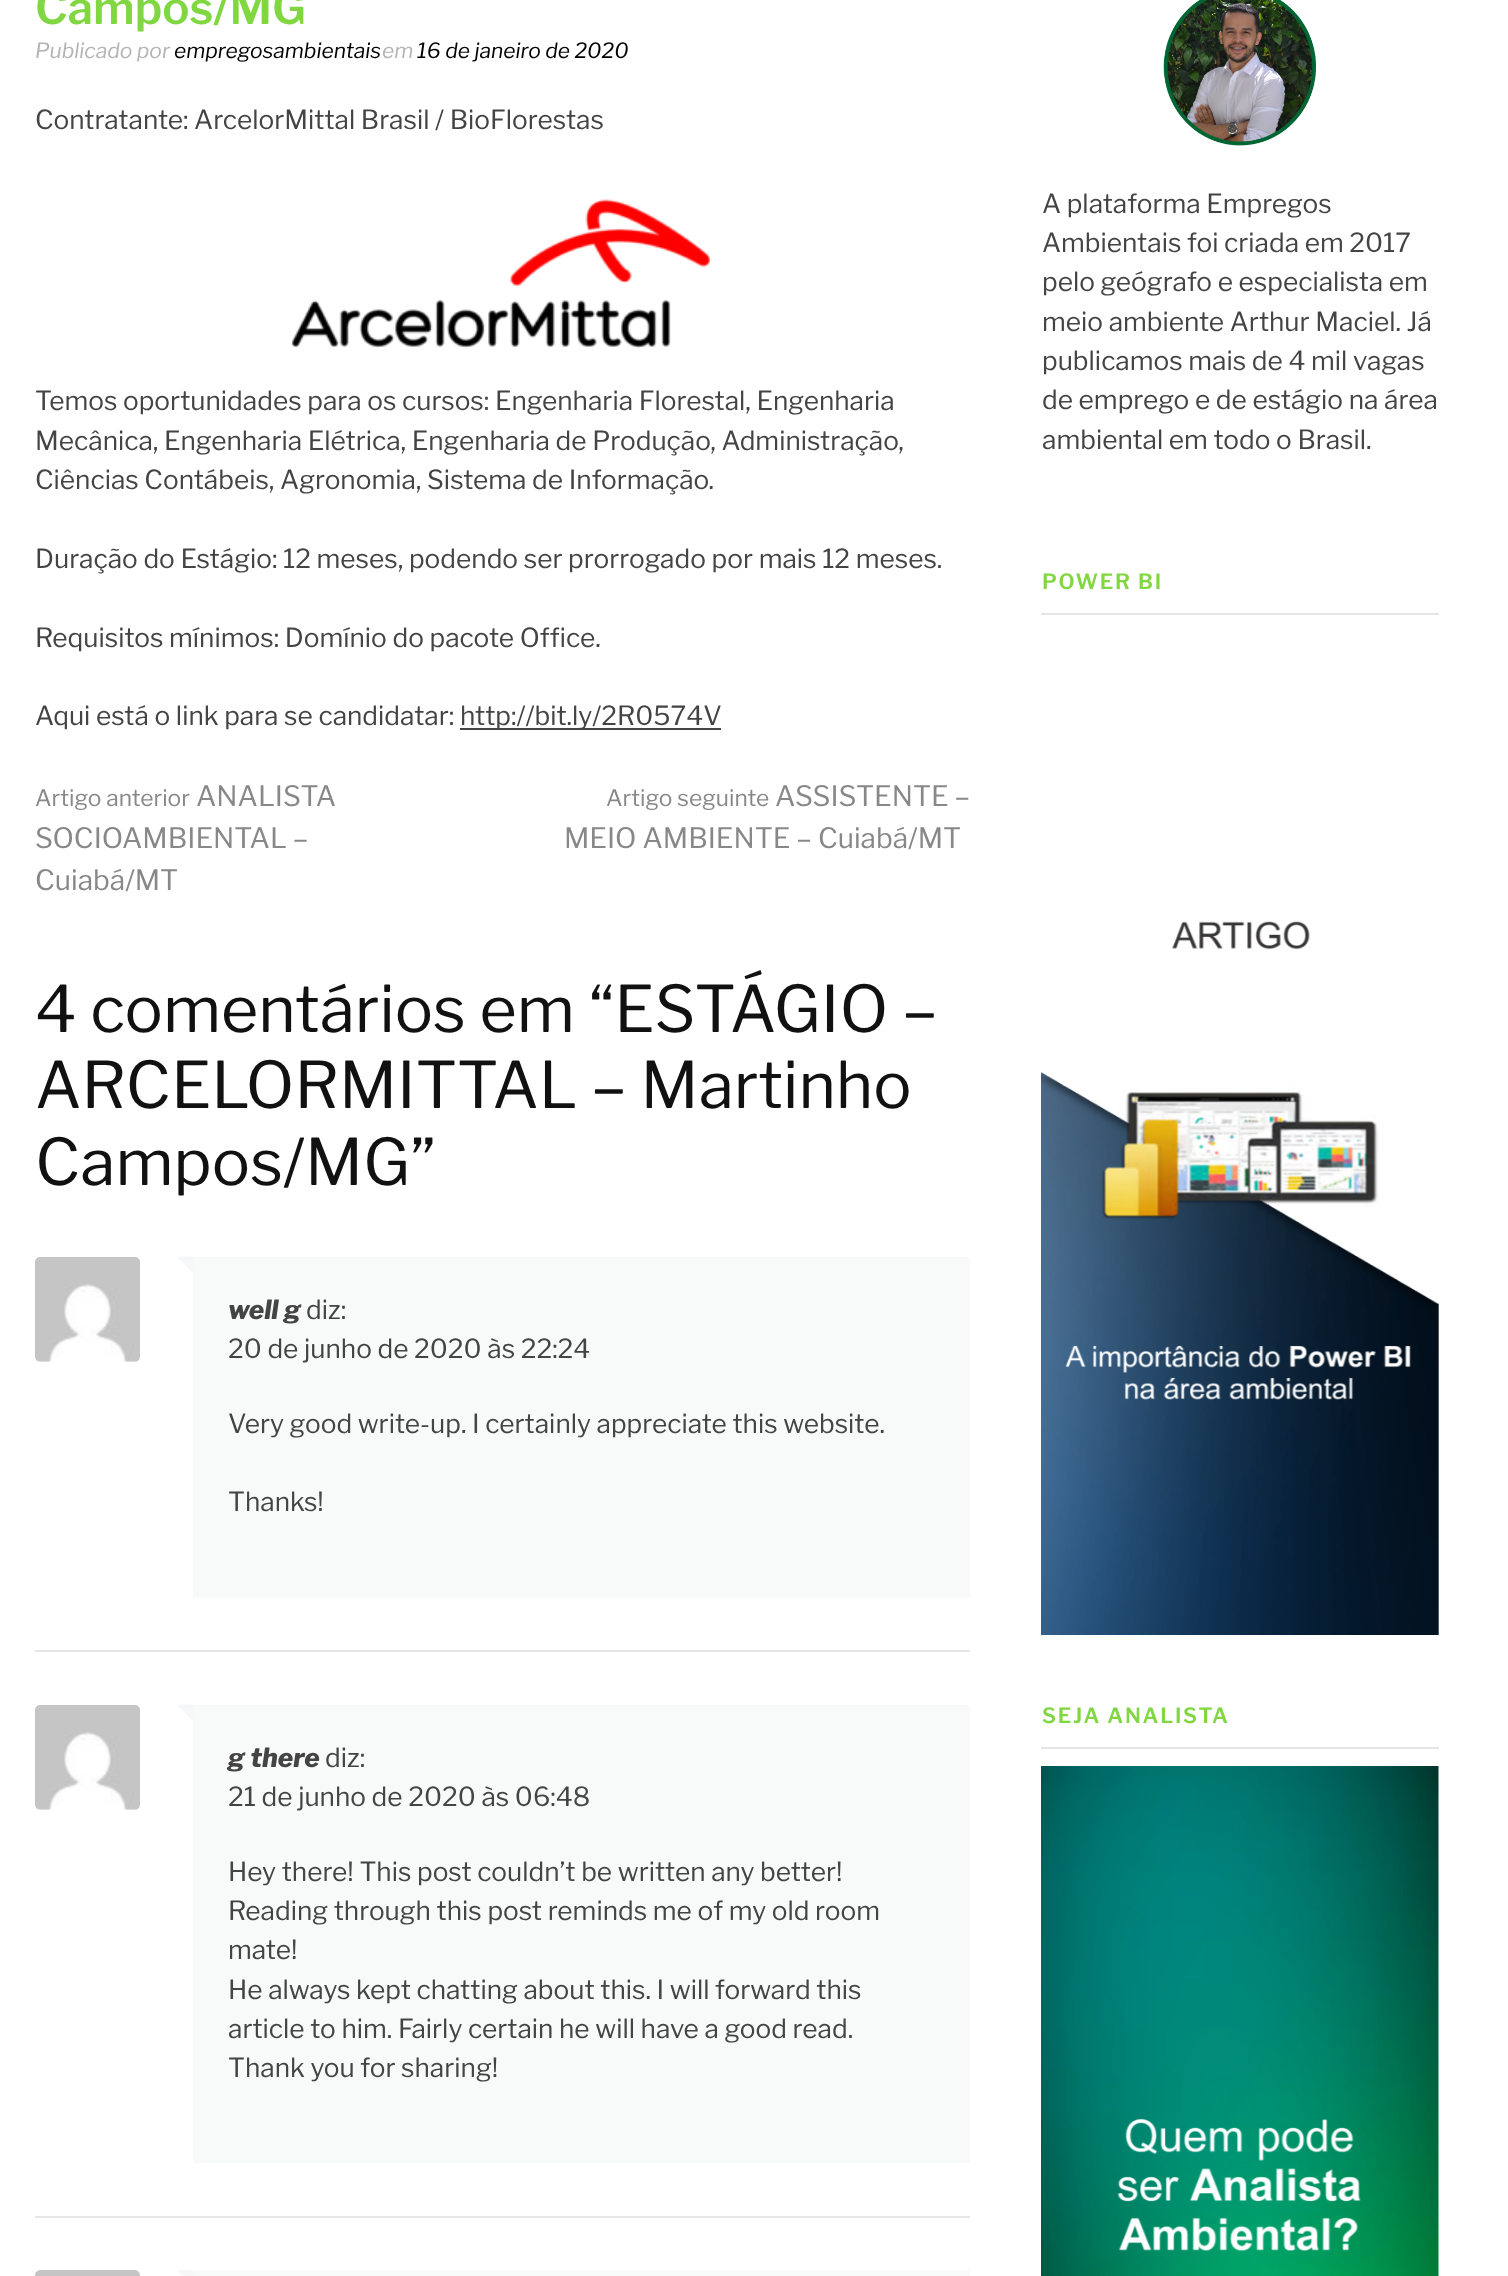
<!DOCTYPE html>
<meta charset="utf-8">
<style>body { margin: 0 } canvas { display: block }</style>
<canvas id="canvas" width="1508" height="2276"></canvas>
<script type="module">
  const canvas = document.getElementById("canvas");
  const ctx = canvas.getContext("2d");
  ctx.miterLimit = 4;
  ctx.fontKerning = "normal";
  async function loadImage(src) {
    const img = new Image();
    img.src = src;
    await img.decode();
    return img;
  }

  ctx.fillStyle = "#ffffff";
  ctx.fillRect(0, 0, 1508, 2276);
  ctx.font = "600 45.5px Libre Franklin";
  ctx.fillStyle = "#81d742";
  ctx.fillText("Campos/MG", 35, 24);
  ctx.font = "italic 21px Libre Franklin";
  ctx.fillStyle = "#b4b4b4";
  ctx.fillText("Publicado por", 35, 58);
  ctx.fillStyle = "#000000";
  ctx.fillText("empregosambientais", 174, 58);
  ctx.fillStyle = "#b4b4b4";
  ctx.fillText("em", 382, 58);
  ctx.fillStyle = "#000000";
  ctx.fillText("16 de janeiro de 2020", 417, 58);
  ctx.font = "26.25px Libre Franklin";
  ctx.fillStyle = "#444444";
  ctx.fillText("Contratante: ArcelorMittal Brasil / BioFlorestas", 35, 129);
  ctx.drawImage(await loadImage("img1.png"), 291, 199, 419, 149);
  ctx.fillText("Temos oportunidades para os cursos: Engenharia Florestal, Engenharia", 35, 410);
  ctx.fillText("Mecânica, Engenharia Elétrica, Engenharia de Produção, Administração,", 35, 450);
  ctx.fillText("Ciências Contábeis, Agronomia, Sistema de Informação.", 35, 489);
  ctx.fillText("Duração do Estágio: 12 meses, podendo ser prorrogado por mais 12 meses.", 35, 568);
  ctx.fillText("Requisitos mínimos: Domínio do pacote Office.", 35, 647);
  ctx.fillText("Aqui está o link para se candidatar:", 35, 725);
  ctx.fillRect(460, 728, 261, 2);
  ctx.fillText("http://bit.ly/2R0574V", 460, 725);
  ctx.font = "22.75px Libre Franklin";
  ctx.fillStyle = "#888888";
  ctx.fillText("Artigo anterior", 35, 806);
  ctx.font = "28px Libre Franklin";
  ctx.fillText("ANALISTA", 196, 806);
  ctx.fillText("SOCIOAMBIENTAL –", 35, 848);
  ctx.fillText("Cuiabá/MT", 35, 890);
  ctx.font = "22.75px Libre Franklin";
  ctx.fillText("Artigo seguinte", 606, 806);
  ctx.font = "28px Libre Franklin";
  ctx.fillText("ASSISTENTE –", 775, 806);
  ctx.fillText("MEIO AMBIENTE – Cuiabá/MT", 564, 848);
  ctx.font = "64.1px Libre Franklin";
  ctx.fillStyle = "#111111";
  ctx.fillText("4 comentários em “ESTÁGIO –", 35, 1032);
  ctx.fillText("ARCELORMITTAL – Martinho", 35, 1108);
  ctx.fillText("Campos/MG”", 35, 1185);
  ctx.fillStyle = "#e6e6e6";
  ctx.fillRect(35, 1650, 935, 2);
  ctx.drawImage(await loadImage("img2.png"), 35, 1257, 105, 105);
  ctx.fillStyle = "#f8f9f9";
  ctx.fillRect(193, 1257, 777, 341);
  ctx.fillStyle = "#f6f7f9";
  ctx.beginPath();
  ctx.moveTo(194, 1256.5);
  ctx.lineTo(194, 1274);
  ctx.lineTo(177, 1256.5);
  ctx.closePath();
  ctx.fill();
  ctx.font = "italic 800 26.25px Libre Franklin";
  ctx.fillStyle = "#444444";
  ctx.fillText("well g", 228, 1319);
  ctx.font = "26.25px Libre Franklin";
  ctx.fillText("diz:", 306, 1319);
  ctx.fillText("20 de junho de 2020 às 22:24", 228, 1358);
  ctx.fillText("Very good write-up. I certainly appreciate this website.", 228, 1433);
  ctx.fillText("Thanks!", 228, 1511);
  ctx.fillStyle = "#e6e6e6";
  ctx.fillRect(35, 2216, 935, 2);
  ctx.drawImage(await loadImage("img3.png"), 35, 1705, 105, 105);
  ctx.fillStyle = "#f8f9f9";
  ctx.fillRect(193, 1705, 777, 458);
  ctx.fillStyle = "#f6f7f9";
  ctx.beginPath();
  ctx.moveTo(194, 1704.5);
  ctx.lineTo(194, 1722);
  ctx.lineTo(177, 1704.5);
  ctx.closePath();
  ctx.fill();
  ctx.font = "italic 800 26.25px Libre Franklin";
  ctx.fillStyle = "#444444";
  ctx.fillText("g there", 228, 1767);
  ctx.font = "26.25px Libre Franklin";
  ctx.fillText("diz:", 325, 1767);
  ctx.fillText("21 de junho de 2020 às 06:48", 228, 1806);
  ctx.fillText("Hey there! This post couldn’t be written any better!", 228, 1881);
  ctx.fillText("Reading through this post reminds me of my old room", 228, 1920);
  ctx.fillText("mate!", 228, 1959);
  ctx.fillText("He always kept chatting about this. I will forward this", 228, 1999);
  ctx.fillText("article to him. Fairly certain he will have a good read.", 228, 2038);
  ctx.fillText("Thank you for sharing!", 228, 2077);
  ctx.drawImage(await loadImage("img4.png"), 35, 2270, 105, 6);
  ctx.fillStyle = "#f8f9f9";
  ctx.fillRect(193, 2270, 777, 6);
  ctx.fillStyle = "#f6f7f9";
  ctx.beginPath();
  ctx.moveTo(194, 2270);
  ctx.lineTo(194, 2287);
  ctx.lineTo(177, 2270);
  ctx.closePath();
  ctx.fill();
  ctx.drawImage(await loadImage("img5.png"), 1163, 0, 153, 146);
  ctx.fillStyle = "#444444";
  ctx.fillText("A plataforma Empregos", 1042, 213);
  ctx.fillText("Ambientais foi criada em 2017", 1042, 252);
  ctx.fillText("pelo geógrafo e especialista em", 1042, 291);
  ctx.fillText("meio ambiente Arthur Maciel. Já", 1042, 331);
  ctx.fillText("publicamos mais de 4 mil vagas", 1042, 370);
  ctx.fillText("de emprego e de estágio na área", 1042, 409);
  ctx.fillText("ambiental em todo o Brasil.", 1042, 449);
  ctx.fillStyle = "#e5e5e5";
  ctx.fillRect(1041, 613, 398, 2);
  ctx.letterSpacing = "1.75px";
  ctx.font = "600 21px Libre Franklin";
  ctx.fillStyle = "#81d742";
  ctx.fillText("POWER BI", 1042, 589);
  ctx.drawImage(await loadImage("img6.png"), 1041, 921, 398, 714);
  ctx.fillStyle = "#e5e5e5";
  ctx.fillRect(1041, 1747, 398, 2);
  ctx.fillStyle = "#81d742";
  ctx.fillText("SEJA ANALISTA", 1042, 1723);
  ctx.drawImage(await loadImage("img7.png"), 1041, 1766, 398, 510);
</script>
